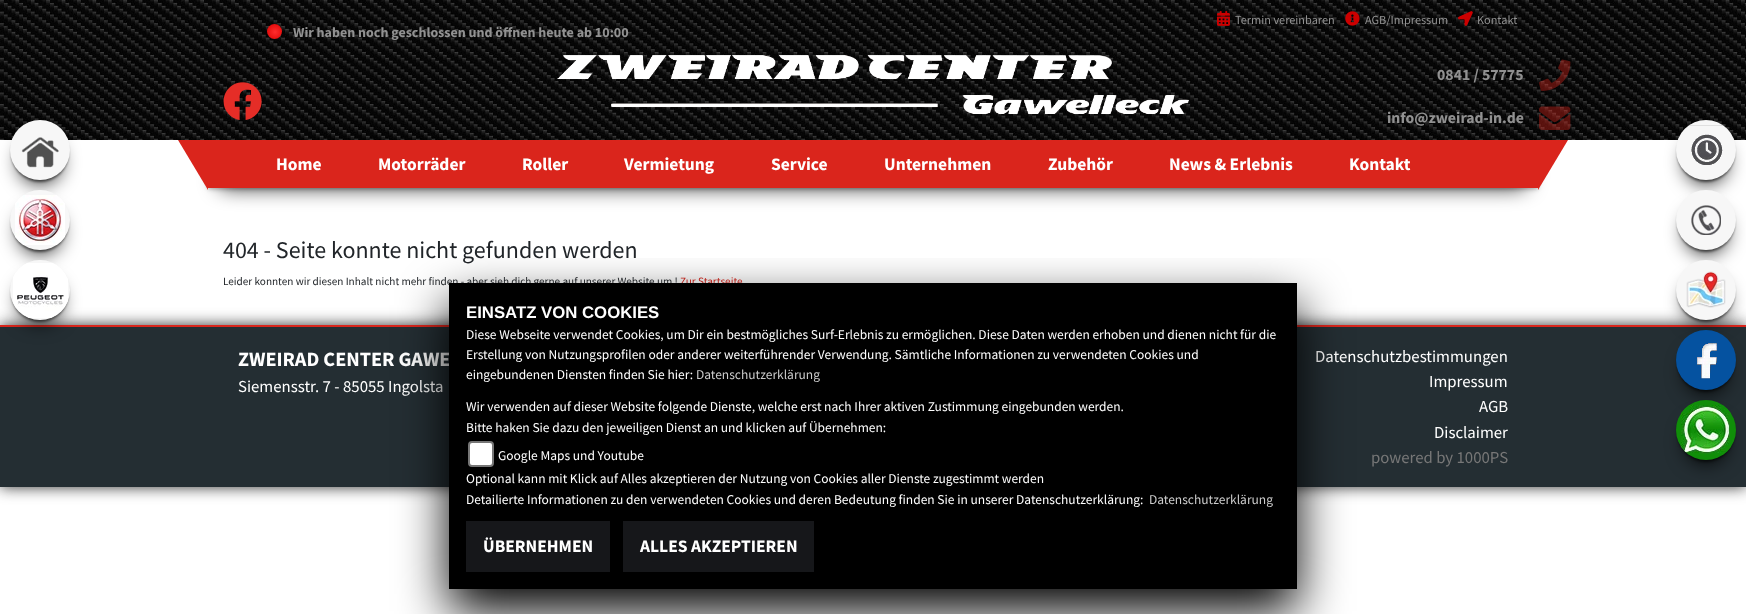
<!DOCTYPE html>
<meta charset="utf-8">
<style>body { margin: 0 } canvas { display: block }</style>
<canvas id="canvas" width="1746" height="614"></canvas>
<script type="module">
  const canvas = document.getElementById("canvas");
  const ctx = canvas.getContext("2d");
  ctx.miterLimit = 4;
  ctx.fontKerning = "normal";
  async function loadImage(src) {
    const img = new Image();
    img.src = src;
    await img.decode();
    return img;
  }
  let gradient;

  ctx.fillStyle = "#ffffff";
  ctx.fillRect(0, 0, 1746, 614);
  ctx.drawImage(await loadImage("img4.png"), 0, 0, 1746, 140);
  ctx.fillStyle = "#000000";
  ctx.filter = "blur(10px)";
  ctx.beginPath();
  ctx.roundRect(20, 142, 40, 40, 20);
  ctx.fill();
  ctx.filter = "none";
  ctx.fillStyle = "rgba(0, 0, 0, 0.5)";
  ctx.filter = "blur(1px)";
  ctx.beginPath();
  ctx.roundRect(11, 124, 58, 58, 29);
  ctx.fill();
  ctx.filter = "none";
  ctx.fillStyle = "#f7f7f7";
  ctx.beginPath();
  ctx.arc(40, 150, 30, 0, Math.PI * 2);
  ctx.fill();
  ctx.drawImage(await loadImage("img1.png"), 21, 137, 38, 31);
  ctx.fillStyle = "#000000";
  ctx.filter = "blur(10px)";
  ctx.beginPath();
  ctx.roundRect(20, 212, 40, 40, 20);
  ctx.fill();
  ctx.filter = "none";
  ctx.fillStyle = "rgba(0, 0, 0, 0.5)";
  ctx.filter = "blur(1px)";
  ctx.beginPath();
  ctx.roundRect(11, 194, 58, 58, 29);
  ctx.fill();
  ctx.filter = "none";
  ctx.fillStyle = "#f7f7f7";
  ctx.beginPath();
  ctx.arc(40, 220, 30, 0, Math.PI * 2);
  ctx.fill();
  ctx.drawImage(await loadImage("img2.png"), 15, 195, 50, 50);
  ctx.fillStyle = "#333333";
  ctx.filter = "blur(7.5px)";
  ctx.beginPath();
  ctx.rect(0, 325, 1746, 162);
  ctx.fill();
  ctx.filter = "none";
  ctx.fillStyle = "#242e33";
  ctx.fillRect(0, 327, 1746, 160);
  ctx.fillStyle = "#da251c";
  ctx.fillRect(0, 325, 1746, 2);
  ctx.fillStyle = "#000000";
  ctx.filter = "blur(10px)";
  ctx.beginPath();
  ctx.roundRect(20, 282, 40, 40, 20);
  ctx.fill();
  ctx.filter = "none";
  ctx.fillStyle = "rgba(0, 0, 0, 0.5)";
  ctx.filter = "blur(1px)";
  ctx.beginPath();
  ctx.roundRect(11, 264, 58, 58, 29);
  ctx.fill();
  ctx.filter = "none";
  ctx.fillStyle = "#f7f7f7";
  ctx.beginPath();
  ctx.arc(40, 290, 30, 0, Math.PI * 2);
  ctx.fill();
  ctx.drawImage(await loadImage("img3.png"), 13, 263, 55, 55);
  ctx.drawImage(await loadImage("img5.png"), 1217, 11, 13, 15);
  ctx.font = "12.25px Source Sans Pro";
  ctx.fillStyle = "#919191";
  ctx.fillText("Termin vereinbaren", 1235, 24);
  ctx.drawImage(await loadImage("img6.png"), 1345, 11, 15, 15);
  ctx.fillText("AGB/Impressum", 1365, 24);
  ctx.drawImage(await loadImage("img7.png"), 1458, 11, 15, 15);
  ctx.fillText("Kontakt", 1477, 24);
  gradient = ctx.createRadialGradient(275, 32, 0, 275, 32, 11);
  gradient.addColorStop(0, "#ff2d2d");
  gradient.addColorStop(1, "#d90000");
  ctx.fillStyle = gradient;
  ctx.beginPath();
  ctx.arc(274.5, 31.5, 7.5, 0, Math.PI * 2);
  ctx.fill();
  ctx.font = "bold 14px Source Sans Pro";
  ctx.fillStyle = "#919191";
  ctx.fillText("Wir haben noch geschlossen und öffnen heute ab 10:00", 293, 37);
  ctx.drawImage(await loadImage("img8.png"), 223, 82, 39, 38);
  ctx.drawImage(await loadImage("img9.png"), 557, 54, 632, 60);
  ctx.font = "bold 15.75px Source Sans Pro";
  ctx.fillText("0841 / 57775", 1437, 80);
  ctx.drawImage(await loadImage("img10.png"), 1539, 59, 32, 32);
  ctx.fillText("info@zweirad-in.de", 1387, 123);
  ctx.drawImage(await loadImage("img11.png"), 1539, 106, 32, 24);
  ctx.fillStyle = "rgba(0, 0, 0, 0.3)";
  ctx.filter = "blur(2px)";
  ctx.beginPath();
  ctx.rect(208, 141, 1330, 48);
  ctx.fill();
  ctx.filter = "none";
  ctx.fillStyle = "rgba(0, 0, 0, 0.8)";
  ctx.filter = "blur(10px)";
  ctx.beginPath();
  ctx.roundRect(218, 164, 1310, 24, 10);
  ctx.fill();
  ctx.filter = "none";
  ctx.fillStyle = "#da251c";
  ctx.fillRect(208, 140, 1330, 48);
  ctx.beginPath();
  ctx.moveTo(208, 140);
  ctx.lineTo(208, 190);
  ctx.lineTo(178, 140);
  ctx.closePath();
  ctx.fill();
  ctx.font = "bold 17.5px Source Sans Pro";
  ctx.fillStyle = "#ffffff";
  ctx.fillText("Home", 276, 170);
  ctx.fillText("Motorräder", 378, 170);
  ctx.fillText("Roller", 522, 170);
  ctx.fillText("Vermietung", 624, 170);
  ctx.fillText("Service", 771, 170);
  ctx.fillText("Unternehmen", 884, 170);
  ctx.fillText("Zubehör", 1048, 170);
  ctx.fillText("News & Erlebnis", 1169, 170);
  ctx.fillText("Kontakt", 1349, 170);
  ctx.fillStyle = "#da251c";
  ctx.beginPath();
  ctx.moveTo(1538, 140);
  ctx.lineTo(1568, 140);
  ctx.lineTo(1538, 190);
  ctx.closePath();
  ctx.fill();
  ctx.font = "24px Source Sans Pro";
  ctx.fillStyle = "#212529";
  ctx.fillText("404 - Seite konnte nicht gefunden werden", 223, 258);
  ctx.font = "11.2px Source Sans Pro";
  ctx.fillText("Leider konnten wir diesen Inhalt nicht mehr finden - aber sieh dich gerne auf unserer Website um !", 223, 285);
  ctx.fillStyle = "#da251c";
  ctx.fillText("Zur Startseite", 680, 285);
  ctx.font = "bold 20.25px Source Sans Pro";
  ctx.fillStyle = "#ffffff";
  ctx.fillText("ZWEIRAD CENTER GAWE", 238, 366);
  ctx.font = "16.75px Source Sans Pro";
  ctx.fillText("Siemensstr. 7 -", 238, 392);
  ctx.fillText("85055 Ingolsta", 343, 392);
  ctx.fillText("Datenschutzbestimmungen", 1315, 362);
  ctx.fillText("Impressum", 1429, 387);
  ctx.fillText("AGB", 1479, 412);
  ctx.fillText("Disclaimer", 1434, 438);
  ctx.fillStyle = "#777777";
  ctx.fillText("powered by 1000PS", 1371, 463);
  ctx.fillStyle = "#000000";
  ctx.filter = "blur(10px)";
  ctx.beginPath();
  ctx.roundRect(1686, 142, 40, 40, 20);
  ctx.fill();
  ctx.filter = "none";
  ctx.fillStyle = "rgba(0, 0, 0, 0.5)";
  ctx.filter = "blur(1px)";
  ctx.beginPath();
  ctx.roundRect(1677, 124, 58, 58, 29);
  ctx.fill();
  ctx.filter = "none";
  ctx.fillStyle = "#f7f7f7";
  ctx.beginPath();
  ctx.arc(1706, 150, 30, 0, Math.PI * 2);
  ctx.fill();
  ctx.drawImage(await loadImage("img12.png"), 1681, 125, 43, 40);
  ctx.fillStyle = "#000000";
  ctx.filter = "blur(10px)";
  ctx.beginPath();
  ctx.roundRect(1686, 212, 40, 40, 20);
  ctx.fill();
  ctx.filter = "none";
  ctx.fillStyle = "rgba(0, 0, 0, 0.5)";
  ctx.filter = "blur(1px)";
  ctx.beginPath();
  ctx.roundRect(1677, 194, 58, 58, 29);
  ctx.fill();
  ctx.filter = "none";
  ctx.fillStyle = "#f7f7f7";
  ctx.beginPath();
  ctx.arc(1706, 220, 30, 0, Math.PI * 2);
  ctx.fill();
  ctx.drawImage(await loadImage("img13.png"), 1691, 205, 30, 30);
  ctx.fillStyle = "#000000";
  ctx.filter = "blur(10px)";
  ctx.beginPath();
  ctx.roundRect(1686, 282, 40, 40, 20);
  ctx.fill();
  ctx.filter = "none";
  ctx.fillStyle = "rgba(0, 0, 0, 0.5)";
  ctx.filter = "blur(1px)";
  ctx.beginPath();
  ctx.roundRect(1677, 264, 58, 58, 29);
  ctx.fill();
  ctx.filter = "none";
  ctx.fillStyle = "#f7f7f7";
  ctx.beginPath();
  ctx.arc(1706, 290, 30, 0, Math.PI * 2);
  ctx.fill();
  ctx.drawImage(await loadImage("img14.png"), 1686, 271, 40, 37);
  ctx.fillStyle = "#000000";
  ctx.filter = "blur(10px)";
  ctx.beginPath();
  ctx.roundRect(1686, 352, 40, 40, 20);
  ctx.fill();
  ctx.filter = "none";
  ctx.fillStyle = "rgba(0, 0, 0, 0.5)";
  ctx.filter = "blur(1px)";
  ctx.beginPath();
  ctx.roundRect(1677, 334, 58, 58, 29);
  ctx.fill();
  ctx.filter = "none";
  ctx.fillStyle = "#0552a0";
  ctx.beginPath();
  ctx.arc(1706, 360, 30, 0, Math.PI * 2);
  ctx.fill();
  ctx.drawImage(await loadImage("img15.png"), 1697, 343, 20, 36);
  ctx.fillStyle = "#000000";
  ctx.filter = "blur(10px)";
  ctx.beginPath();
  ctx.roundRect(1686, 422, 40, 40, 20);
  ctx.fill();
  ctx.filter = "none";
  ctx.fillStyle = "rgba(0, 0, 0, 0.5)";
  ctx.filter = "blur(1px)";
  ctx.beginPath();
  ctx.roundRect(1677, 404, 58, 58, 29);
  ctx.fill();
  ctx.filter = "none";
  ctx.fillStyle = "#108e09";
  ctx.beginPath();
  ctx.arc(1706, 430, 30, 0, Math.PI * 2);
  ctx.fill();
  ctx.drawImage(await loadImage("img16.png"), 1681, 405, 50, 50);
  ctx.save();
  ctx.beginPath();
  ctx.rect(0, 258, 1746, 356);
  ctx.clip();
  ctx.fillStyle = "#000000";
  ctx.filter = "blur(25px)";
  ctx.beginPath();
  ctx.rect(449, 305, 848, 306);
  ctx.fill();
  ctx.filter = "none";
  ctx.restore();
  ctx.fillStyle = "#000000";
  ctx.fillRect(449, 283, 848, 306);
  ctx.font = "bold 16.75px Liberation Sans";
  ctx.fillStyle = "#ffffff";
  ctx.fillText("EINSATZ VON COOKIES", 466, 318);
  ctx.font = "13.45px Source Sans Pro";
  ctx.fillText("Diese Webseite verwendet Cookies, um Dir ein bestmögliches Surf-Erlebnis zu ermöglichen. Diese Daten werden erhoben und dienen nicht für die", 466, 339);
  ctx.fillText("Erstellung von Nutzungsprofilen oder anderer weiterführender Verwendung. Sämtliche Informationen zu verwendeten Cookies und", 466, 359);
  ctx.fillText("eingebundenen Diensten finden Sie hier:", 466, 379);
  ctx.fillStyle = "#cccccc";
  ctx.fillText("Datenschutzerklärung", 696, 379);
  ctx.fillStyle = "#ffffff";
  ctx.fillText("Wir verwenden auf dieser Website folgende Dienste, welche erst nach Ihrer aktiven Zustimmung eingebunden werden.", 466, 411);
  ctx.fillText("Bitte haken Sie dazu den jeweiligen Dienst an und klicken auf Übernehmen:", 466, 432);
  ctx.beginPath();
  ctx.roundRect(469, 442, 24, 24, 3);
  ctx.fill();
  ctx.strokeStyle = "#767676";
  ctx.lineWidth = 2;
  ctx.stroke();
  ctx.fillText("Google Maps und Youtube", 498, 460);
  ctx.fillText("Optional kann mit Klick auf Alles akzeptieren der Nutzung von Cookies aller Dienste zugestimmt werden", 466, 483);
  ctx.fillText("Detailierte Informationen zu den verwendeten Cookies und deren Bedeutung finden Sie in unserer Datenschutzerklärung:", 466, 504);
  ctx.fillStyle = "#cccccc";
  ctx.fillText("Datenschutzerklärung", 1149, 504);
  ctx.fillStyle = "#16171a";
  ctx.fillRect(466, 521, 144, 51);
  ctx.font = "bold 17.5px Source Sans Pro";
  ctx.fillStyle = "#ffffff";
  ctx.fillText("ÜBERNEHMEN", 483, 552);
  ctx.fillStyle = "#16171a";
  ctx.fillRect(623, 521, 191, 51);
  ctx.fillStyle = "#ffffff";
  ctx.fillText("ALLES AKZEPTIEREN", 640, 552);
</script>
